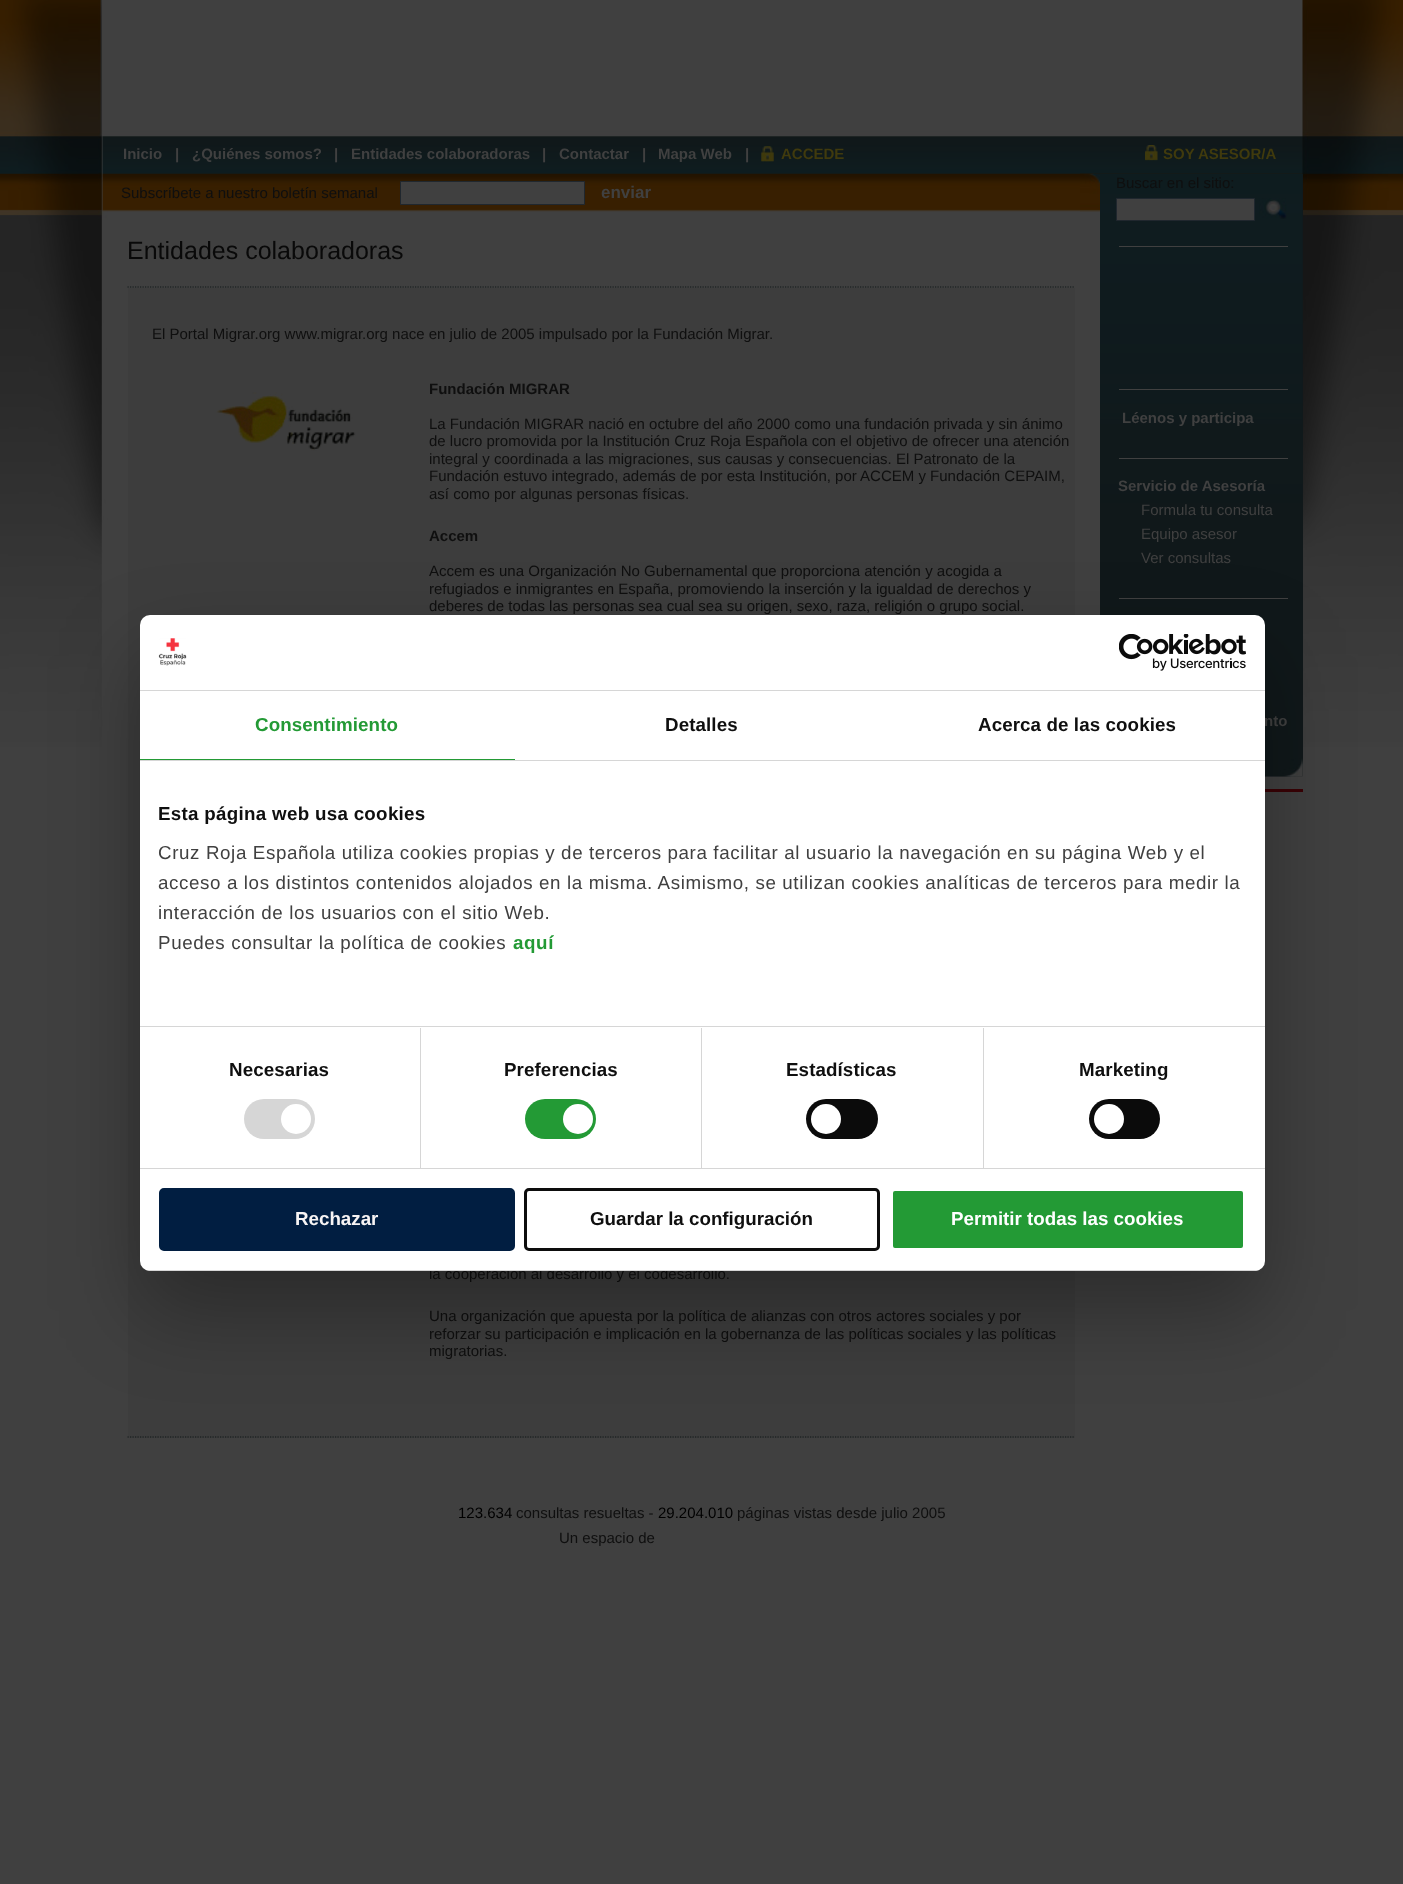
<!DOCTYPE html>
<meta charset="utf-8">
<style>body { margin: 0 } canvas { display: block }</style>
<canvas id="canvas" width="1403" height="1884"></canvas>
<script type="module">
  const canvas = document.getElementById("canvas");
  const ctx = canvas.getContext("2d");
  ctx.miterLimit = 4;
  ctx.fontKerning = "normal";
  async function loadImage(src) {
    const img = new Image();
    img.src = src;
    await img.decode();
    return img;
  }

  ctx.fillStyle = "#404040";
  ctx.fillRect(0, 0, 1403, 1884);
  ctx.drawImage(await loadImage("img1.png"), 0, 0, 1403, 747);
  ctx.drawImage(await loadImage("img2.png"), 102, 0, 1201, 212);
  ctx.font = "bold 15px Liberation Sans";
  ctx.fillText("Inicio", 123, 159);
  ctx.fillText("|", 175, 159);
  ctx.fillText("¿Quiénes somos?", 192, 159);
  ctx.fillText("|", 334, 159);
  ctx.fillText("Entidades colaboradoras", 351, 159);
  ctx.fillText("|", 542, 159);
  ctx.fillText("Contactar", 559, 159);
  ctx.fillText("|", 642, 159);
  ctx.fillText("Mapa Web", 658, 159);
  ctx.fillText("|", 745, 159);
  ctx.drawImage(await loadImage("img3.png"), 761, 146, 13, 17);
  ctx.fillStyle = "#403a0d";
  ctx.fillText("ACCEDE", 781, 159);
  ctx.drawImage(await loadImage("img4.png"), 1145, 145, 13, 16);
  ctx.fillText("SOY ASESOR/A", 1163, 159);
  ctx.drawImage(await loadImage("img5.png"), 1080, 173, 20, 39);
  ctx.font = "15px Liberation Sans";
  ctx.fillStyle = "#0f0f0f";
  ctx.fillText("Subscríbete a nuestro boletín semanal", 121, 198);
  ctx.fillStyle = "#404040";
  ctx.beginPath();
  ctx.rect(400.5, 181.5, 184, 23);
  ctx.fill();
  ctx.strokeStyle = "#20272e";
  ctx.stroke();
  ctx.font = "bold 17px Liberation Sans";
  ctx.fillText("enviar", 601, 198);
  ctx.fillStyle = "#10181a";
  ctx.fillRect(1302, 174, 1, 602);
  ctx.drawImage(await loadImage("img6.png"), 1100, 173, 203, 604);
  ctx.font = "15px Liberation Sans";
  ctx.fillStyle = "#0f0f0f";
  ctx.fillText("Buscar en el sitio:", 1116, 188);
  ctx.fillStyle = "#404040";
  ctx.beginPath();
  ctx.rect(1116.5, 198.5, 138, 22);
  ctx.fill();
  ctx.stroke();
  ctx.drawImage(await loadImage("img7.png"), 1259, 198, 28, 21);
  ctx.fillRect(1119, 246, 169, 1);
  ctx.fillRect(1119, 389, 169, 1);
  ctx.font = "bold 15px Liberation Sans";
  ctx.fillText("Léenos y participa", 1122, 423);
  ctx.fillRect(1119, 458, 169, 1);
  ctx.fillText("Servicio de Asesoría", 1118, 491);
  ctx.font = "15px Liberation Sans";
  ctx.fillText("Formula tu consulta", 1141, 515);
  ctx.fillText("Equipo asesor", 1141, 539);
  ctx.fillText("Ver consultas", 1141, 563);
  ctx.fillRect(1119, 598, 169, 1);
  ctx.font = "bold 15px Liberation Sans";
  ctx.fillText("nto", 1264, 726);
  ctx.drawImage(await loadImage("img8.png"), 1265, 758, 38, 19);
  ctx.drawImage(await loadImage("img9.png"), 1265, 759, 38, 18);
  ctx.fillStyle = "#390205";
  ctx.fillRect(1265, 789, 38, 3);
  ctx.beginPath();
  ctx.moveTo(127.5, 287);
  ctx.lineTo(1075, 287);
  ctx.strokeStyle = "#10181a";
  ctx.lineWidth = 1.2;
  ctx.setLineDash([1.25, 1.25]);
  ctx.stroke();
  ctx.font = "25px Liberation Sans";
  ctx.fillStyle = "#090909";
  ctx.fillText("Entidades colaboradoras", 127, 259);
  ctx.fillStyle = "#3d3d3d";
  ctx.fillRect(128, 288, 947, 1150);
  ctx.beginPath();
  ctx.moveTo(127.5, 1437);
  ctx.lineTo(1075, 1437);
  ctx.stroke();
  ctx.font = "15px Liberation Sans";
  ctx.fillStyle = "#0f0f0f";
  ctx.fillText("El Portal Migrar.org www.migrar.org nace en julio de 2005 impulsado por la Fundación Migrar.", 152, 339);
  ctx.drawImage(await loadImage("img10.png"), 216, 392, 140, 59);
  ctx.font = "bold 15px Liberation Sans";
  ctx.fillText("Fundación MIGRAR", 429, 394);
  ctx.font = "15px Liberation Sans";
  ctx.fillText("La Fundación MIGRAR nació en octubre del año 2000 como una fundación privada y sin ánimo", 429, 429);
  ctx.fillText("de lucro promovida por la Institución Cruz Roja Española con el objetivo de ofrecer una atención", 429, 446);
  ctx.fillText("integral y coordinada a las migraciones, sus causas y consecuencias. El Patronato de la", 429, 464);
  ctx.fillText("Fundación estuvo integrado, además de por esta Institución, por ACCEM y Fundación CEPAIM,", 429, 481);
  ctx.fillText("así como por algunas personas físicas.", 429, 499);
  ctx.font = "bold 15px Liberation Sans";
  ctx.fillText("Accem", 429, 541);
  ctx.font = "15px Liberation Sans";
  ctx.fillText("Accem es una Organización No Gubernamental que proporciona atención y acogida a", 429, 576);
  ctx.fillText("refugiados e inmigrantes en España, promoviendo la inserción y la igualdad de derechos y", 429, 594);
  ctx.fillText("deberes de todas las personas sea cual sea su origen, sexo, raza, religión o grupo social.", 429, 611);
  ctx.fillText("la cooperación al desarrollo y el codesarrollo.", 429, 1279);
  ctx.fillText("Una organización que apuesta por la política de alianzas con otros actores sociales y por", 429, 1321);
  ctx.fillText("reforzar su participación e implicación en la gobernanza de las políticas sociales y las políticas", 429, 1339);
  ctx.fillText("migratorias.", 429, 1356);
  ctx.fillStyle = "#000000";
  ctx.fillText("123.634", 458, 1518);
  ctx.fillStyle = "#0f0f0f";
  ctx.fillText("consultas resueltas -", 516, 1518);
  ctx.fillStyle = "#000000";
  ctx.fillText("29.204.010", 658, 1518);
  ctx.fillStyle = "#0f0f0f";
  ctx.fillText("páginas vistas desde julio 2005", 737, 1518);
  ctx.fillText("Un espacio de", 559, 1543);
  ctx.fillStyle = "rgba(0, 0, 0, 0.3)";
  ctx.filter = "blur(42.5px)";
  ctx.beginPath();
  ctx.roundRect(140, 655, 1125, 656, 10);
  ctx.fill();
  ctx.filter = "none";
  ctx.fillStyle = "#ffffff";
  ctx.beginPath();
  ctx.roundRect(140, 615, 1125, 656, 10);
  ctx.fill();
  ctx.fillStyle = "#d6d6d6";
  ctx.fillRect(140, 690, 1125, 1);
  ctx.drawImage(await loadImage("img11.png"), 158, 638, 29, 28);
  ctx.drawImage(await loadImage("img12.png"), 1119, 634, 127, 37);
  ctx.fillRect(140, 760, 1125, 1);
  ctx.fillStyle = "#239a35";
  ctx.fillRect(140, 759, 375, 1);
  ctx.letterSpacing = "0.1px";
  ctx.font = "bold 18.75px Liberation Sans";
  ctx.fillText("Consentimiento", 255, 731);
  ctx.fillStyle = "#0f0f0f";
  ctx.fillText("Detalles", 665, 731);
  ctx.fillText("Acerca de las cookies", 978, 731);
  ctx.fillStyle = "#d6d6d6";
  ctx.fillRect(140, 1026, 1125, 1);
  ctx.letterSpacing = "0.3px";
  ctx.fillStyle = "#0f0f0f";
  ctx.fillText("Esta página web usa cookies", 158, 820);
  ctx.letterSpacing = "0.62px";
  ctx.font = "18.75px Liberation Sans";
  ctx.fillStyle = "#404040";
  ctx.fillText("Cruz Roja Española utiliza cookies propias y de terceros para facilitar al usuario la navegación en su página Web y el", 158, 859);
  ctx.fillText("acceso a los distintos contenidos alojados en la misma. Asimismo, se utilizan cookies analíticas de terceros para medir la", 158, 889);
  ctx.fillText("interacción de los usuarios con el sitio Web.", 158, 919);
  ctx.fillText("Puedes consultar la política de cookies", 158, 949);
  ctx.font = "bold 18.75px Liberation Sans";
  ctx.fillStyle = "#239a35";
  ctx.fillText("aquí", 513, 949);
  ctx.fillStyle = "#d6d6d6";
  ctx.fillRect(140, 1168, 1125, 1);
  ctx.fillRect(420, 1028, 1, 140);
  ctx.letterSpacing = "0.1px";
  ctx.fillStyle = "#0f0f0f";
  ctx.fillText("Necesarias", 229, 1076);
  ctx.fillStyle = "#d6d6d6";
  ctx.beginPath();
  ctx.roundRect(244, 1099, 71, 40, 20);
  ctx.fill();
  ctx.fillStyle = "#ffffff";
  ctx.beginPath();
  ctx.arc(296, 1119, 15, 0, Math.PI * 2);
  ctx.fill();
  ctx.fillStyle = "#d6d6d6";
  ctx.fillRect(701, 1028, 1, 140);
  ctx.fillStyle = "#0f0f0f";
  ctx.fillText("Preferencias", 504, 1076);
  ctx.fillStyle = "#239a35";
  ctx.beginPath();
  ctx.roundRect(525, 1099, 71, 40, 20);
  ctx.fill();
  ctx.fillStyle = "#ffffff";
  ctx.beginPath();
  ctx.arc(578, 1119, 15, 0, Math.PI * 2);
  ctx.fill();
  ctx.fillStyle = "#d6d6d6";
  ctx.fillRect(983, 1028, 1, 140);
  ctx.fillStyle = "#0f0f0f";
  ctx.fillText("Estadísticas", 786, 1076);
  ctx.fillStyle = "#0b0b0b";
  ctx.beginPath();
  ctx.roundRect(806, 1099, 72, 40, 20);
  ctx.fill();
  ctx.fillStyle = "#ffffff";
  ctx.beginPath();
  ctx.arc(826, 1119, 15, 0, Math.PI * 2);
  ctx.fill();
  ctx.fillStyle = "#0f0f0f";
  ctx.fillText("Marketing", 1079, 1076);
  ctx.fillStyle = "#0b0b0b";
  ctx.beginPath();
  ctx.roundRect(1089, 1099, 71, 40, 20);
  ctx.fill();
  ctx.fillStyle = "#ffffff";
  ctx.beginPath();
  ctx.arc(1109, 1119, 15, 0, Math.PI * 2);
  ctx.fill();
  ctx.save();
  ctx.beginPath();
  ctx.roundRect(140, 615, 1125, 656, 10);
  ctx.clip();
  ctx.fillStyle = "#d6d6d6";
  ctx.fillRect(140, 1270, 1125, 1);
  ctx.restore();
  ctx.fillStyle = "#011e41";
  ctx.beginPath();
  ctx.roundRect(160.5, 1189.5, 353, 60, 3.5);
  ctx.fill();
  ctx.strokeStyle = "#011e41";
  ctx.lineWidth = 3;
  ctx.setLineDash([]);
  ctx.stroke();
  ctx.letterSpacing = "0px";
  ctx.fillStyle = "#f7f4f4";
  ctx.fillText("Rechazar", 295, 1225);
  ctx.beginPath();
  ctx.roundRect(525.5, 1189.5, 353, 60, 3.5);
  ctx.strokeStyle = "#0d0d0d";
  ctx.stroke();
  ctx.fillStyle = "#0f0f0f";
  ctx.fillText("Guardar la configuración", 590, 1225);
  ctx.fillStyle = "#239a35";
  ctx.beginPath();
  ctx.roundRect(891.5, 1189.5, 353, 60, 3.5);
  ctx.fill();
  ctx.strokeStyle = "#ffffff";
  ctx.stroke();
  ctx.fillStyle = "#ffffff";
  ctx.fillText("Permitir todas las cookies", 951, 1225);
</script>
